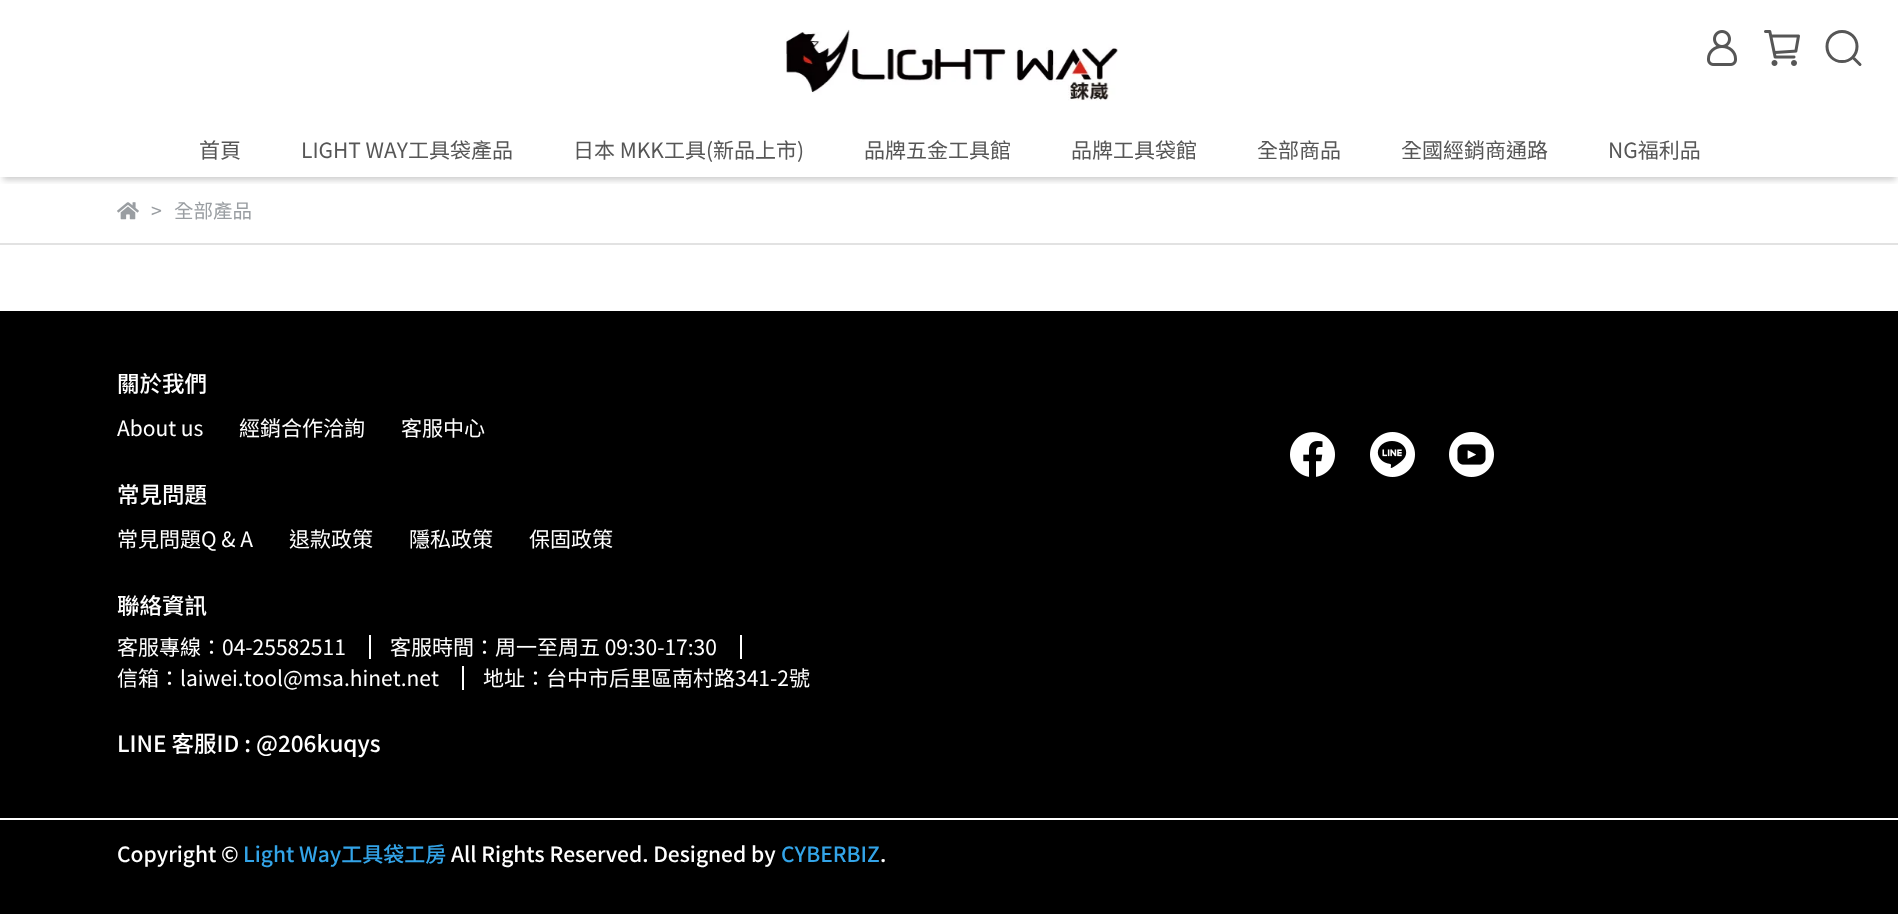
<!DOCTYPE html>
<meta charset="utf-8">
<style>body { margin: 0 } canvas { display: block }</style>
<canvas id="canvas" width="1898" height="914"></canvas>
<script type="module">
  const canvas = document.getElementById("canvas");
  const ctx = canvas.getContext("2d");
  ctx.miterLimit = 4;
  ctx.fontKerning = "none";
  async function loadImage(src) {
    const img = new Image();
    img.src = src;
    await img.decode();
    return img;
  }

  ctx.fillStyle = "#ffffff";
  ctx.fillRect(0, 0, 1898, 914);
  ctx.drawImage(await loadImage("img1.png"), 786, 29, 332, 72);
  ctx.drawImage(await loadImage("img2.png"), 1707, 30, 30, 36);
  ctx.drawImage(await loadImage("img3.png"), 1764, 30, 36, 36);
  ctx.beginPath();
  ctx.moveTo(1857, 46.5);
  ctx.bezierCurveTo(1857, 55, 1850.5, 61.5, 1842, 61.5);
  ctx.bezierCurveTo(1833.5, 61.5, 1827, 55, 1827, 46.5);
  ctx.bezierCurveTo(1827, 38, 1833.5, 31.5, 1842, 31.5);
  ctx.bezierCurveTo(1850.5, 31.5, 1857, 38, 1857, 46.5);
  ctx.closePath();
  ctx.moveTo(1854, 58.5);
  ctx.lineTo(1860, 64.5);
  ctx.strokeStyle = "#565656";
  ctx.lineWidth = 3;
  ctx.lineCap = "round";
  ctx.lineJoin = "round";
  ctx.stroke();
  ctx.save();
  ctx.beginPath();
  ctx.rect(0, 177, 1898, 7);
  ctx.clip();
  ctx.fillStyle = "rgba(0, 0, 0, 0.2)";
  ctx.filter = "blur(3px)";
  ctx.beginPath();
  ctx.rect(3, 131, 1893, 49);
  ctx.fill();
  ctx.filter = "none";
  ctx.restore();
  ctx.font = "21px Noto Sans TC";
  ctx.fillStyle = "#565656";
  ctx.fillText("首頁", 199, 158);
  ctx.fillText("LIGHT WAY工具袋產品", 301, 158);
  ctx.fillText("日本 MKK工具(新品上市)", 573, 158);
  ctx.fillText("品牌五金工具館", 864, 158);
  ctx.fillText("品牌工具袋館", 1071, 158);
  ctx.fillText("全部商品", 1257, 158);
  ctx.fillText("全國經銷商通路", 1401, 158);
  ctx.fillText("NG福利品", 1608, 158);
  ctx.fillStyle = "#e2e2e2";
  ctx.fillRect(0, 243, 1898, 2);
  ctx.drawImage(await loadImage("img4.png"), 117, 202, 22, 18);
  ctx.font = "19.5px Noto Sans TC";
  ctx.fillStyle = "#9a9ea2";
  ctx.fillText(">", 151, 218);
  ctx.fillText("全部產品", 174, 218);
  ctx.fillStyle = "#000000";
  ctx.fillRect(0, 311, 1898, 603);
  ctx.font = "500 22.5px Noto Sans TC";
  ctx.fillStyle = "#ffffff";
  ctx.fillText("關於我們", 117, 392);
  ctx.font = "21px Noto Sans TC";
  ctx.fillText("About us", 117, 436);
  ctx.fillText("經銷合作洽詢", 239, 436);
  ctx.fillText("客服中心", 401, 436);
  ctx.font = "500 22.5px Noto Sans TC";
  ctx.fillText("常見問題", 117, 503);
  ctx.font = "21px Noto Sans TC";
  ctx.fillText("常見問題Q & A", 117, 547);
  ctx.fillText("退款政策", 289, 547);
  ctx.fillText("隱私政策", 409, 547);
  ctx.fillText("保固政策", 529, 547);
  ctx.font = "500 22.5px Noto Sans TC";
  ctx.fillText("聯絡資訊", 117, 614);
  ctx.fillRect(369, 635, 2, 24);
  ctx.font = "21px Noto Sans TC";
  ctx.fillText("客服專線：04-25582511", 117, 655);
  ctx.fillRect(740, 635, 2, 24);
  ctx.fillText("客服時間：周一至周五 09:30-17:30", 390, 655);
  ctx.fillRect(462, 666, 2, 24);
  ctx.fillText("信箱：laiwei.tool@msa.hinet.net", 117, 686);
  ctx.fillText("地址：台中市后里區南村路341-2號", 483, 686);
  ctx.font = "500 22.5px Noto Sans TC";
  ctx.fillText("LINE 客服ID : @206kuqys", 117, 752);
  ctx.drawImage(await loadImage("img5.png"), 1290, 432, 45, 45);
  ctx.drawImage(await loadImage("img6.png"), 1370, 432, 45, 45);
  ctx.drawImage(await loadImage("img7.png"), 1449, 432, 45, 45);
  ctx.fillRect(0, 818, 1898, 2);
  ctx.font = "500 21px Noto Sans TC";
  ctx.fillText("Copyright ©", 117, 862);
  ctx.fillStyle = "#33a4e8";
  ctx.fillText("Light Way工具袋工房", 243, 862);
  ctx.fillStyle = "#ffffff";
  ctx.fillText("All Rights Reserved. Designed by", 451, 862);
  ctx.fillStyle = "#33a4e8";
  ctx.fillText("CYBERBIZ", 781, 862);
  ctx.fillStyle = "#ffffff";
  ctx.fillText(".", 880, 862);
</script>
